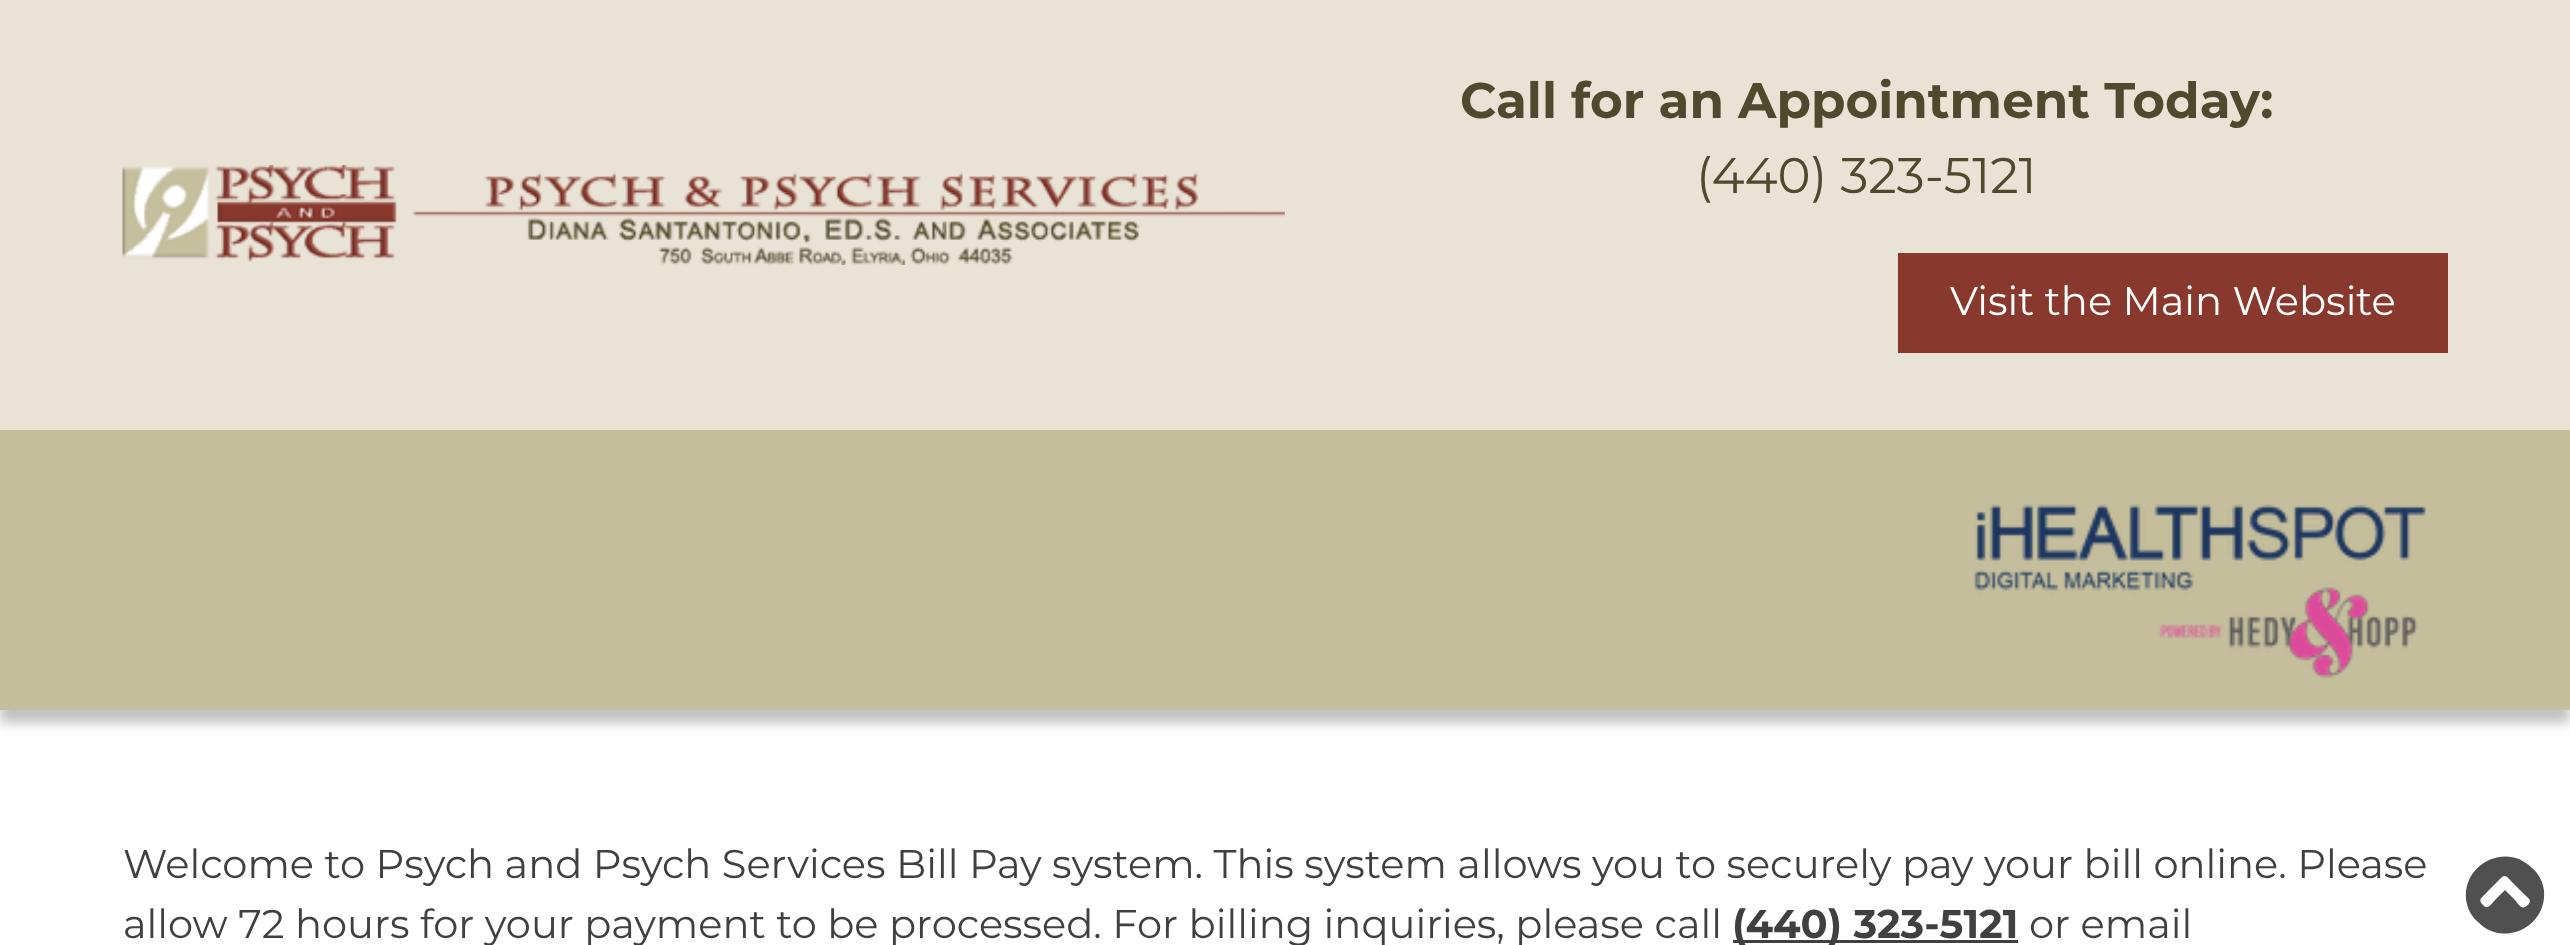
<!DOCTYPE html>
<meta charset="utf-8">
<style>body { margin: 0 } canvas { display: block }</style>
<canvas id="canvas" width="2570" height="945"></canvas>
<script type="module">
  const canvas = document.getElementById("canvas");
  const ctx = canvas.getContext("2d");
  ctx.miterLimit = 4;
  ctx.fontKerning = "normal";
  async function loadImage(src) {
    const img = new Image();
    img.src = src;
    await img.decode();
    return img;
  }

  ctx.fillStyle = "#ffffff";
  ctx.fillRect(0, 0, 2570, 945);
  ctx.fillStyle = "#e9e3d6";
  ctx.fillRect(0, 0, 2570, 430);
  ctx.drawImage(await loadImage("img1.png"), 122, 165, 1163, 100);
  ctx.font = "bold 50px Montserrat";
  ctx.fillStyle = "#4e4a2d";
  ctx.fillText("Call for an Appointment Today:", 1460, 118);
  ctx.font = "50px Montserrat";
  ctx.fillText("(440) 323-5121", 1696, 193);
  ctx.fillStyle = "#88382c";
  ctx.fillRect(1898, 253, 550, 100);
  ctx.font = "40px Montserrat";
  ctx.fillStyle = "#ffffff";
  ctx.fillText("Visit the Main Website", 1950, 315);
  ctx.fillStyle = "rgba(50, 50, 50, 0.3)";
  ctx.filter = "blur(6px)";
  ctx.beginPath();
  ctx.rect(0, 443, 2570, 280);
  ctx.fill();
  ctx.filter = "none";
  ctx.fillStyle = "#c5be9c";
  ctx.fillRect(0, 430, 2570, 280);
  ctx.drawImage(await loadImage("img2.png"), 1974, 504, 452, 175);
  ctx.fillStyle = "#404040";
  ctx.fillText("Welcome to Psych and Psych Services Bill Pay system. This system allows you to securely pay your bill online. Please", 123, 878);
  ctx.fillText("allow 72 hours for your payment to be processed. For billing inquiries, please call", 123, 938);
  ctx.fillRect(1733, 940, 285, 3);
  ctx.font = "bold 40px Montserrat";
  ctx.fillText("(440) 323-5121", 1732, 938);
  ctx.font = "40px Montserrat";
  ctx.fillText("or email", 2029, 938);
  ctx.fillStyle = "#505050";
  ctx.beginPath();
  ctx.moveTo(2478, 922);
  ctx.bezierCurveTo(2471, 916, 2467, 908, 2466, 899);
  ctx.bezierCurveTo(2463, 863, 2507, 842, 2532, 868);
  ctx.bezierCurveTo(2539, 874, 2543, 882, 2544, 891);
  ctx.bezierCurveTo(2547, 927, 2503, 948, 2478, 922);
  ctx.closePath();
  ctx.moveTo(2502, 877);
  ctx.lineTo(2488, 891);
  ctx.bezierCurveTo(2481, 899, 2477, 899, 2484, 906);
  ctx.bezierCurveTo(2488, 910, 2492, 903, 2494, 901);
  ctx.lineTo(2505, 890);
  ctx.lineTo(2516, 901);
  ctx.bezierCurveTo(2517, 903, 2521, 909, 2525, 907);
  ctx.lineTo(2528, 905);
  ctx.bezierCurveTo(2532, 900, 2529, 899, 2525, 895);
  ctx.lineTo(2511, 881);
  ctx.bezierCurveTo(2509, 879, 2506, 874, 2502, 877);
  ctx.closePath();
  ctx.fill();
</script>
